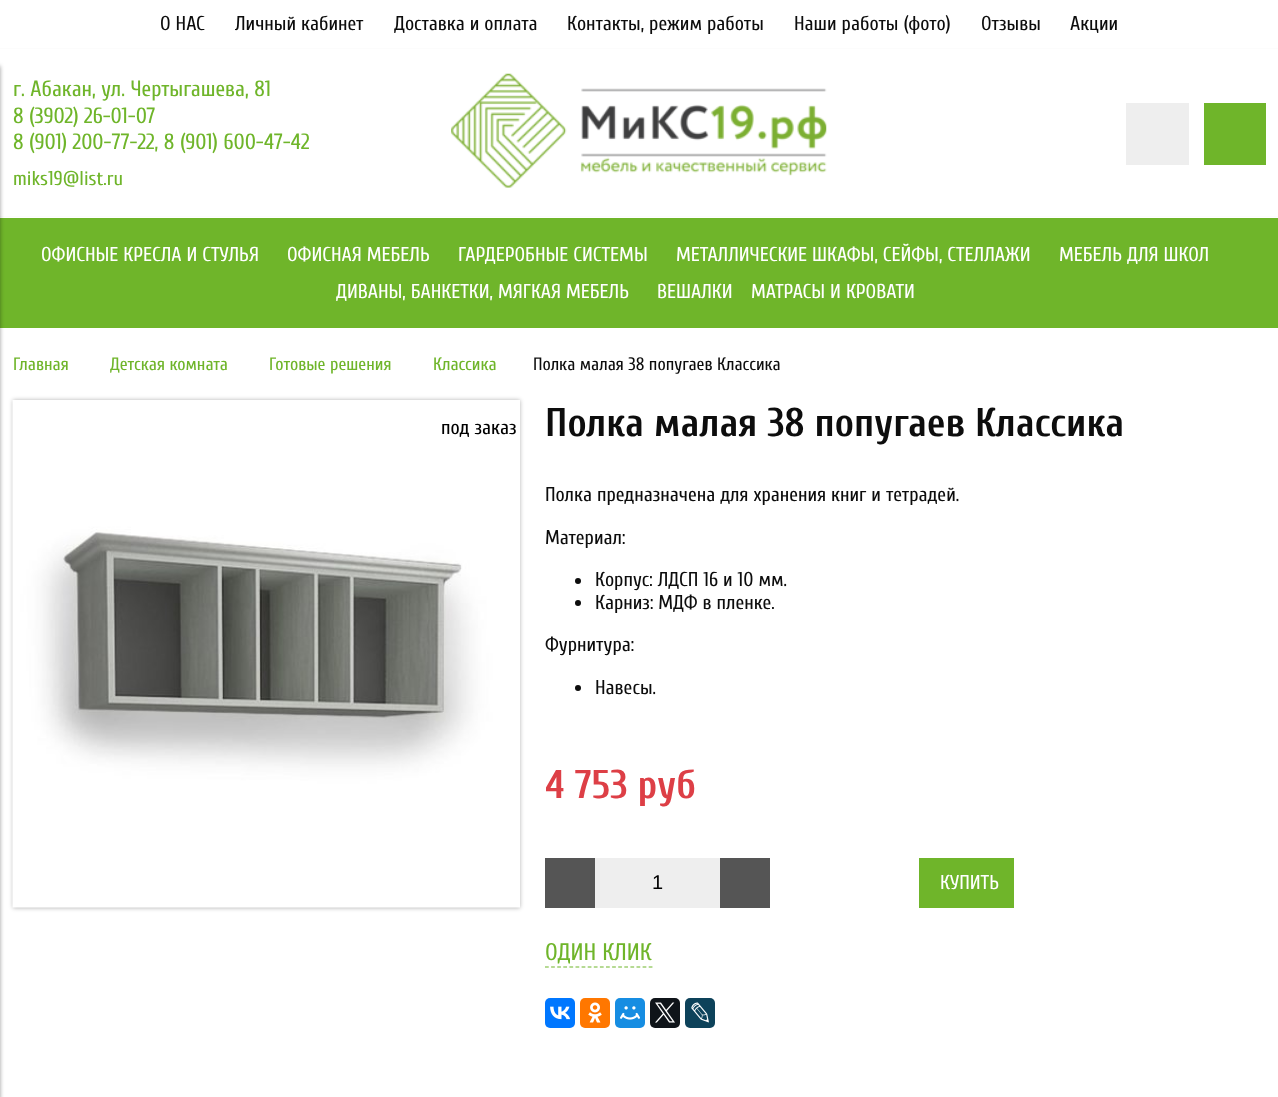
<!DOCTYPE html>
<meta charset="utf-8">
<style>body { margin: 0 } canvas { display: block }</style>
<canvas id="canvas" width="1278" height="1097"></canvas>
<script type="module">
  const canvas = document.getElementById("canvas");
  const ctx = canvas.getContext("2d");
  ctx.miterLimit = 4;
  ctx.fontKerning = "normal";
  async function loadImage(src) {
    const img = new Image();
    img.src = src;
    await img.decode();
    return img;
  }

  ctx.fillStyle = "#ffffff";
  ctx.fillRect(0, 0, 1278, 1097);
  ctx.fillStyle = "#fcfcfc";
  ctx.fillRect(0, 216, 1278, 1);
  ctx.fillStyle = "#6fb52a";
  ctx.fillRect(0, 218, 1278, 110);
  ctx.fillStyle = "rgba(0, 0, 0, 0.4)";
  ctx.filter = "blur(2px)";
  ctx.beginPath();
  ctx.rect(-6, 66, 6, 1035);
  ctx.fill();
  ctx.filter = "none";
  ctx.fillStyle = "#fcfcfc";
  ctx.fillRect(0, 48, 1278, 1);
  ctx.font = "20px Cuprum";
  ctx.fillStyle = "#0d0d0d";
  ctx.fillText("О НАС", 160, 30);
  ctx.fillText("Личный кабинет", 235, 30);
  ctx.fillText("Доставка и оплата", 394, 30);
  ctx.fillText("Контакты, режим работы", 567, 30);
  ctx.fillText("Наши работы (фото)", 794, 30);
  ctx.fillText("Отзывы", 981, 30);
  ctx.fillText("Акции", 1070, 30);
  ctx.font = "22px Cuprum";
  ctx.fillStyle = "#6fb52a";
  ctx.fillText("г. Абакан, ул. Чертыгашева, 81", 13, 96);
  ctx.fillText("8 (3902) 26-01-07", 13, 123);
  ctx.fillText("8 (901) 200-77-22, 8 (901) 600-47-42", 13, 149);
  ctx.font = "20px Cuprum";
  ctx.fillText("miks19@list.ru", 13, 185);
  ctx.drawImage(await loadImage("img1.png"), 451, 73, 376, 115);
  ctx.fillStyle = "#eeeeee";
  ctx.fillRect(1126, 103, 63, 62);
  ctx.fillStyle = "#6fb52a";
  ctx.fillRect(1204, 103, 62, 62);
  ctx.fillStyle = "#ffffff";
  ctx.fillText("ОФИСНЫЕ КРЕСЛА И СТУЛЬЯ", 41, 261);
  ctx.fillText("ОФИСНАЯ МЕБЕЛЬ", 287, 261);
  ctx.fillText("ГАРДЕРОБНЫЕ СИСТЕМЫ", 458, 261);
  ctx.fillText("МЕТАЛЛИЧЕСКИЕ ШКАФЫ, СЕЙФЫ, СТЕЛЛАЖИ", 676, 261);
  ctx.fillText("МЕБЕЛЬ ДЛЯ ШКОЛ", 1059, 261);
  ctx.fillText("ДИВАНЫ, БАНКЕТКИ, МЯГКАЯ МЕБЕЛЬ", 336, 298);
  ctx.fillText("ВЕШАЛКИ", 657, 298);
  ctx.fillText("МАТРАСЫ И КРОВАТИ", 751, 298);
  ctx.font = "18px Cuprum";
  ctx.fillStyle = "#6fb52a";
  ctx.fillText("Главная", 13, 370);
  ctx.fillText("Детская комната", 110, 370);
  ctx.fillText("Готовые решения", 269, 370);
  ctx.fillText("Классика", 433, 370);
  ctx.fillStyle = "#0d0d0d";
  ctx.fillText("Полка малая 38 попугаев Классика", 533, 370);
  ctx.fillStyle = "rgba(0, 0, 0, 0.3)";
  ctx.filter = "blur(2px)";
  ctx.beginPath();
  ctx.rect(13, 400, 507, 508);
  ctx.fill();
  ctx.filter = "none";
  ctx.drawImage(await loadImage("img2.png"), 12, 400, 508, 508);
  ctx.font = "20px Cuprum";
  ctx.fillStyle = "#000000";
  ctx.fillText("под заказ", 441, 434);
  ctx.font = "bold 40px Cuprum";
  ctx.fillStyle = "#0d0d0d";
  ctx.fillText("Полка малая 38 попугаев Классика", 545, 436);
  ctx.font = "20px Cuprum";
  ctx.fillText("Полка предназначена для хранения книг и тетрадей.", 545, 501);
  ctx.fillText("Материал:", 545, 544);
  ctx.beginPath();
  ctx.arc(578, 581, 3, 0, Math.PI * 2);
  ctx.fill();
  ctx.fillText("Корпус: ЛДСП 16 и 10 мм.", 595, 586);
  ctx.beginPath();
  ctx.arc(578, 603, 3, 0, Math.PI * 2);
  ctx.fill();
  ctx.fillText("Карниз: МДФ в пленке.", 595, 609);
  ctx.fillText("Фурнитура:", 545, 651);
  ctx.beginPath();
  ctx.arc(578, 688, 3, 0, Math.PI * 2);
  ctx.fill();
  ctx.fillText("Навесы.", 595, 694);
  ctx.font = "bold 40px Cuprum";
  ctx.fillStyle = "#dd3f46";
  ctx.fillText("4 753 руб", 545, 798);
  ctx.fillStyle = "#555555";
  ctx.fillRect(545, 858, 50, 50);
  ctx.fillStyle = "#eeeeee";
  ctx.fillRect(595, 858, 125, 50);
  ctx.font = "20px Liberation Sans";
  ctx.fillStyle = "#000000";
  ctx.fillText("1", 652, 889);
  ctx.fillStyle = "#555555";
  ctx.fillRect(720, 858, 50, 50);
  ctx.fillStyle = "#6fb52a";
  ctx.fillRect(919, 858, 95, 50);
  ctx.font = "20px Cuprum";
  ctx.fillStyle = "#ffffff";
  ctx.fillText("КУПИТЬ", 940, 889);
  ctx.font = "24px Cuprum";
  ctx.fillStyle = "#6fb52a";
  ctx.fillText("ОДИН КЛИК", 545, 960);
  ctx.beginPath();
  ctx.moveTo(545, 967);
  ctx.lineTo(652.5, 967);
  ctx.strokeStyle = "#6fb52a";
  ctx.lineWidth = 1.2;
  ctx.setLineDash([3.75, 2.35]);
  ctx.stroke();
  ctx.fillStyle = "#0077ff";
  ctx.beginPath();
  ctx.roundRect(545, 998, 30, 30, 5);
  ctx.fill();
  ctx.drawImage(await loadImage("img3.png"), 550, 1006, 20, 14);
  ctx.fillStyle = "#ff7700";
  ctx.beginPath();
  ctx.roundRect(580, 998, 30, 30, 5);
  ctx.fill();
  ctx.drawImage(await loadImage("img4.png"), 588, 1002, 14, 21);
  ctx.fillStyle = "#168de2";
  ctx.beginPath();
  ctx.roundRect(615, 998, 30, 30, 5);
  ctx.fill();
  ctx.drawImage(await loadImage("img5.png"), 620, 1006, 20, 14);
  ctx.fillStyle = "#0f1419";
  ctx.beginPath();
  ctx.roundRect(650, 998, 30, 30, 5);
  ctx.fill();
  ctx.drawImage(await loadImage("img6.png"), 655, 1002, 20, 21);
  ctx.fillStyle = "#0d425a";
  ctx.beginPath();
  ctx.roundRect(685, 998, 30, 30, 5);
  ctx.fill();
  ctx.drawImage(await loadImage("img7.png"), 691, 1002, 18, 21);
</script>
